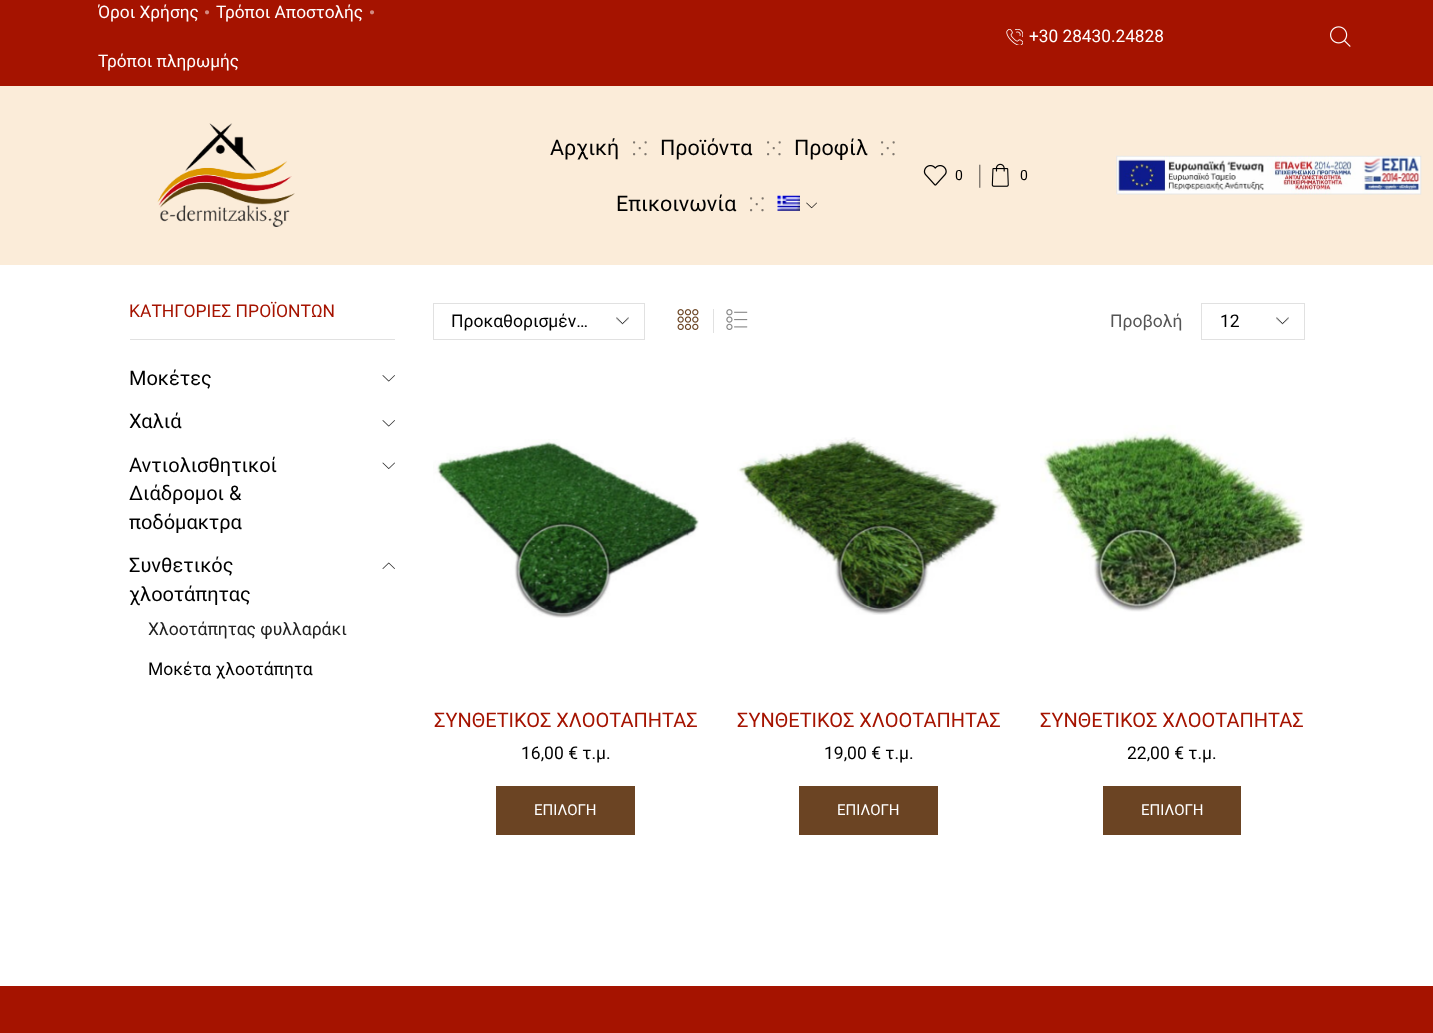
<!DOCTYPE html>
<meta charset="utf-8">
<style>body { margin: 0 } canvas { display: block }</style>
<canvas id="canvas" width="1433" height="1033"></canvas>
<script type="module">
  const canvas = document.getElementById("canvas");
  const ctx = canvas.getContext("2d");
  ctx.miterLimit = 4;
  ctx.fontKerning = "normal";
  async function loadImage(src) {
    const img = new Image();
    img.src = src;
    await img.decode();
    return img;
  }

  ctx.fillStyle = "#ffffff";
  ctx.fillRect(0, 0, 1433, 1033);
  ctx.fillStyle = "#a51300";
  ctx.fillRect(0, 0, 1433, 86);
  ctx.font = "17.25px Roboto";
  ctx.fillStyle = "#ffffff";
  ctx.fillText("Όροι Χρήσης", 98, 18);
  ctx.font = "17.25px Liberation Serif";
  ctx.fillStyle = "#d28980";
  ctx.fillText("•", 204, 18);
  ctx.font = "17.25px Roboto";
  ctx.fillStyle = "#ffffff";
  ctx.fillText("Τρόποι Αποστολής", 216, 18);
  ctx.font = "17.25px Liberation Serif";
  ctx.fillStyle = "#d28980";
  ctx.fillText("•", 369, 18);
  ctx.font = "17.25px Roboto";
  ctx.fillStyle = "#ffffff";
  ctx.fillText("Τρόποι πληρωμής", 98, 67);
  ctx.drawImage(await loadImage("img1.png"), 1006, 29, 17, 16);
  ctx.fillText("+30 28430.24828", 1029, 42);
  ctx.drawImage(await loadImage("img2.png"), 1330, 26, 21, 21);
  ctx.fillStyle = "#fbecd9";
  ctx.fillRect(0, 86, 1433, 179);
  ctx.drawImage(await loadImage("img3.png"), 157, 123, 138, 104);
  ctx.font = "21.5px Roboto";
  ctx.fillStyle = "#000000";
  ctx.fillText("Αρχική", 550, 155);
  ctx.font = "19px Noto Sans";
  ctx.fillStyle = "#7e766d";
  ctx.fillText("⁙", 632, 155);
  ctx.font = "21.5px Roboto";
  ctx.fillStyle = "#000000";
  ctx.fillText("Προϊόντα", 660, 155);
  ctx.font = "19px Noto Sans";
  ctx.fillStyle = "#7e766d";
  ctx.fillText("⁙", 766, 155);
  ctx.font = "21.5px Roboto";
  ctx.fillStyle = "#000000";
  ctx.fillText("Προφίλ", 794, 155);
  ctx.font = "19px Noto Sans";
  ctx.fillStyle = "#7e766d";
  ctx.fillText("⁙", 880, 155);
  ctx.font = "21.5px Roboto";
  ctx.fillStyle = "#000000";
  ctx.fillText("Επικοινωνία", 616, 211);
  ctx.font = "19px Noto Sans";
  ctx.fillStyle = "#7e766d";
  ctx.fillText("⁙", 749, 211);
  ctx.drawImage(await loadImage("img4.png"), 777, 195, 23, 16);
  ctx.drawImage(await loadImage("img5.png"), 806, 202, 11, 7);
  ctx.drawImage(await loadImage("img6.png"), 923, 165, 24, 21);
  ctx.font = "14px Roboto";
  ctx.fillStyle = "#000000";
  ctx.fillText("0", 955, 180);
  ctx.font = "19px Liberation Serif";
  ctx.fillStyle = "#7e766d";
  ctx.fillText("│", 973, 182);
  ctx.drawImage(await loadImage("img7.png"), 991, 163, 18, 24);
  ctx.font = "14px Roboto";
  ctx.fillStyle = "#000000";
  ctx.fillText("0", 1020, 180);
  ctx.drawImage(await loadImage("img8.png"), 1116, 155, 306, 40);
  ctx.fillStyle = "#e1e1e1";
  ctx.fillRect(130, 339, 265, 1);
  ctx.font = "17.5px Roboto";
  ctx.fillStyle = "#a51300";
  ctx.fillText("ΚΑΤΗΓΟΡΙΕΣ ΠΡΟΪΟΝΤΩΝ", 129, 317);
  ctx.font = "20px Roboto";
  ctx.fillStyle = "#000000";
  ctx.fillText("Μοκέτες", 129, 385);
  ctx.drawImage(await loadImage("img9.png"), 382, 375, 13, 7);
  ctx.fillText("Χαλιά", 129, 428);
  ctx.drawImage(await loadImage("img9.png"), 382, 420, 13, 7);
  ctx.fillText("Αντιολισθητικοί", 129, 472);
  ctx.fillText("Διάδρομοι &", 129, 500);
  ctx.fillText("ποδόμακτρα", 129, 529);
  ctx.drawImage(await loadImage("img10.png"), 382, 462, 13, 7);
  ctx.fillText("Συνθετικός", 129, 572);
  ctx.fillText("χλοοτάπητας", 129, 601);
  ctx.drawImage(await loadImage("img11.png"), 382, 562, 13, 7);
  ctx.font = "17.5px Roboto";
  ctx.fillStyle = "#222222";
  ctx.fillText("Χλοοτάπητας φυλλαράκι", 148, 635);
  ctx.fillStyle = "#000000";
  ctx.fillText("Μοκέτα χλοοτάπητα", 148, 675);
  ctx.drawImage(await loadImage("img12.png"), 616, 317, 13, 8);
  ctx.strokeStyle = "#e1e1e1";
  ctx.strokeRect(433.5, 303.5, 211, 36);
  ctx.fillText("Προκαθορισμέν…", 451, 327);
  ctx.drawImage(await loadImage("img13.png"), 677, 309, 22, 21);
  ctx.fillStyle = "#e1e1e1";
  ctx.fillRect(713, 309, 1, 24);
  ctx.drawImage(await loadImage("img14.png"), 726, 309, 22, 21);
  ctx.fillStyle = "#555555";
  ctx.fillText("Προβολή", 1110, 327);
  ctx.drawImage(await loadImage("img15.png"), 1276, 317, 13, 8);
  ctx.strokeRect(1201.5, 303.5, 103, 36);
  ctx.fillStyle = "#000000";
  ctx.fillText("12", 1220, 327);
  ctx.drawImage(await loadImage("img16.png"), 433, 439, 266, 179);
  ctx.font = "20px Roboto";
  ctx.fillStyle = "#a51300";
  ctx.fillText("ΣΥΝΘΕΤΙΚΟΣ ΧΛΟΟΤΑΠΗΤΑΣ", 434, 727);
  ctx.font = "17.5px Roboto";
  ctx.fillStyle = "#000000";
  ctx.fillText("16,00 € τ.μ.", 521, 759);
  ctx.fillStyle = "#6b4423";
  ctx.fillRect(496, 786, 139, 49);
  ctx.font = "15px Roboto";
  ctx.fillStyle = "#ffffff";
  ctx.fillText("ΕΠΙΛΟΓΗ", 534, 815);
  ctx.drawImage(await loadImage("img17.png"), 737, 437, 264, 178);
  ctx.font = "20px Roboto";
  ctx.fillStyle = "#a51300";
  ctx.fillText("ΣΥΝΘΕΤΙΚΟΣ ΧΛΟΟΤΑΠΗΤΑΣ", 737, 727);
  ctx.font = "17.5px Roboto";
  ctx.fillStyle = "#000000";
  ctx.fillText("19,00 € τ.μ.", 824, 759);
  ctx.fillStyle = "#6b4423";
  ctx.fillRect(799, 786, 139, 49);
  ctx.font = "15px Roboto";
  ctx.fillStyle = "#ffffff";
  ctx.fillText("ΕΠΙΛΟΓΗ", 837, 815);
  ctx.drawImage(await loadImage("img18.png"), 1040, 425, 265, 187);
  ctx.font = "20px Roboto";
  ctx.fillStyle = "#a51300";
  ctx.fillText("ΣΥΝΘΕΤΙΚΟΣ ΧΛΟΟΤΑΠΗΤΑΣ", 1040, 727);
  ctx.font = "17.5px Roboto";
  ctx.fillStyle = "#000000";
  ctx.fillText("22,00 € τ.μ.", 1127, 759);
  ctx.fillStyle = "#6b4423";
  ctx.fillRect(1103, 786, 138, 49);
  ctx.font = "15px Roboto";
  ctx.fillStyle = "#ffffff";
  ctx.fillText("ΕΠΙΛΟΓΗ", 1141, 815);
  ctx.fillStyle = "#a51300";
  ctx.fillRect(0, 986, 1433, 47);
</script>
